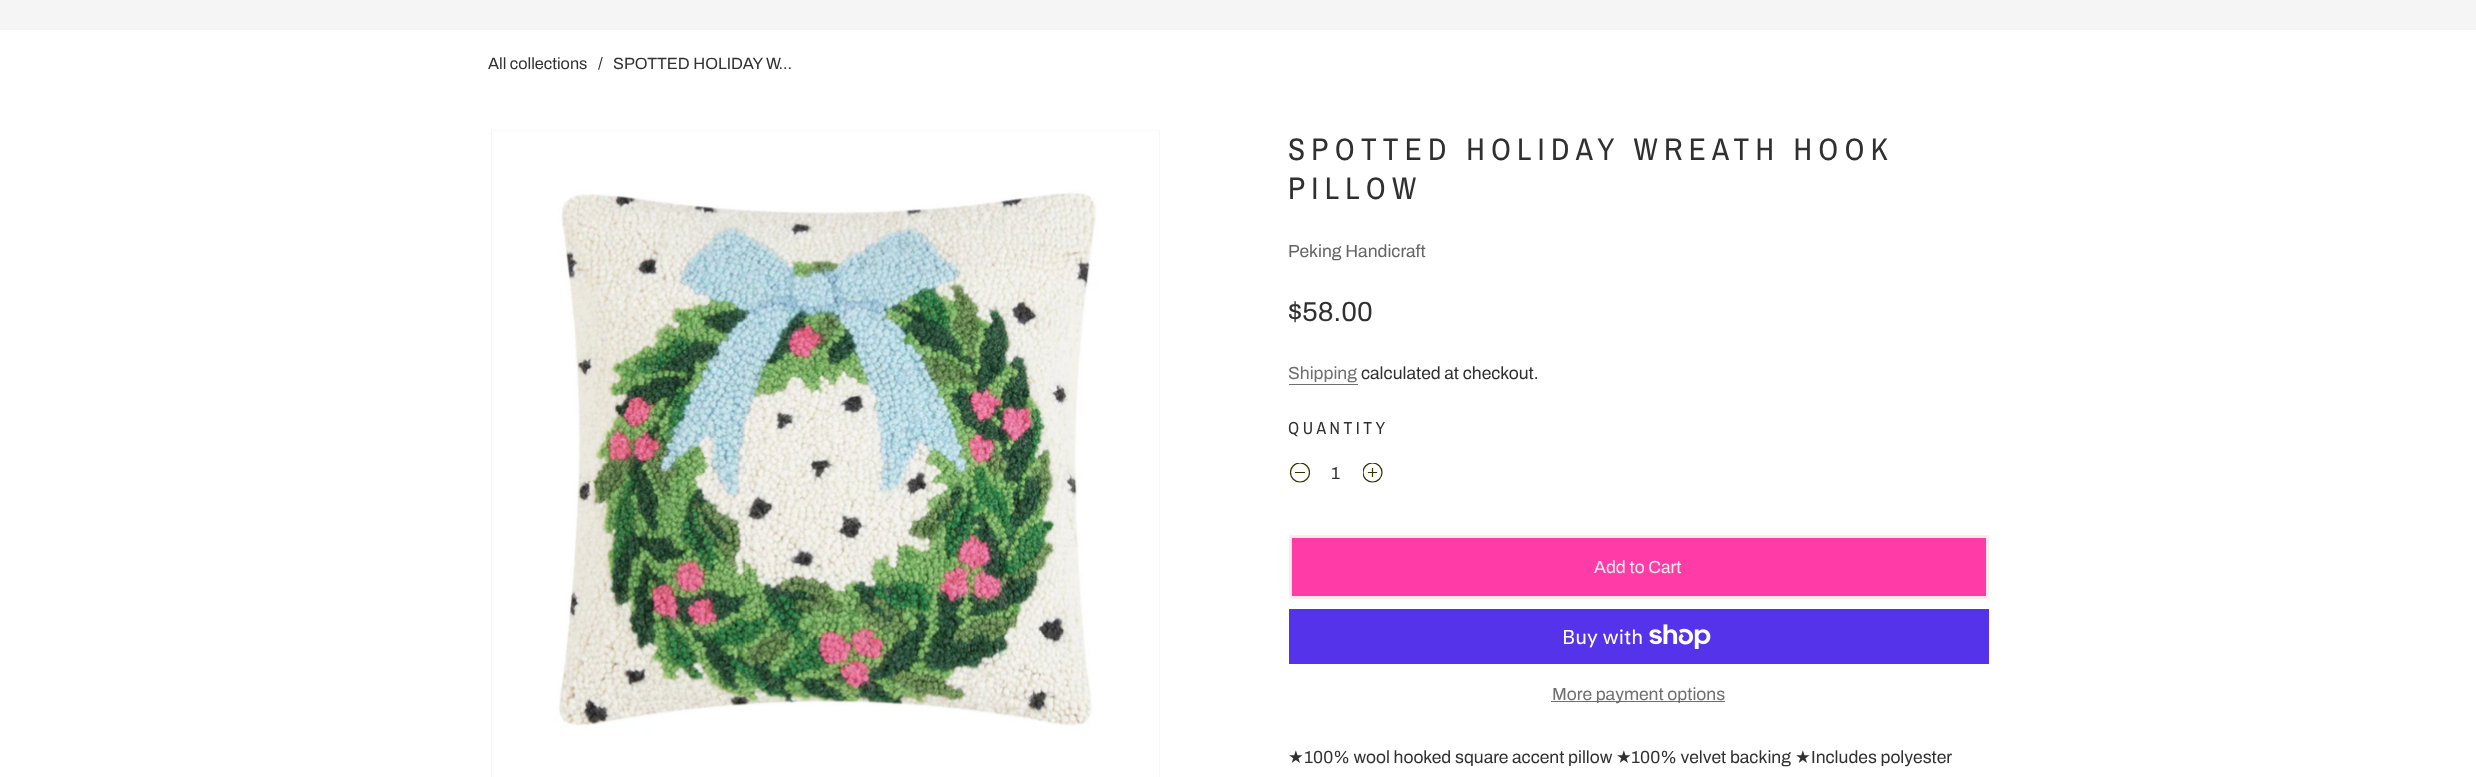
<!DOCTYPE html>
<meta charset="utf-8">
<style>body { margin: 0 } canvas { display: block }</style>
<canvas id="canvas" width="2476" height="777"></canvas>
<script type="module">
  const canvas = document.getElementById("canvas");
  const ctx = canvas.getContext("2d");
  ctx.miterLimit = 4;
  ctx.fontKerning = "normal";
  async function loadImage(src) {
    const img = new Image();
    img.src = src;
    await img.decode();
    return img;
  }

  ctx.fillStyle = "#ffffff";
  ctx.fillRect(0, 0, 2476, 777);
  ctx.fillStyle = "#f5f5f5";
  ctx.fillRect(0, 0, 2476, 30);
  ctx.font = "16.25px Archivo";
  ctx.fillStyle = "#303030";
  ctx.fillText("All collections", 488, 69);
  ctx.fillText("/", 598, 69);
  ctx.fillText("SPOTTED HOLIDAY W...", 613, 69);
  ctx.fillStyle = "#d6d6d6";
  ctx.fillRect(491, 130, 669, 647);
  ctx.drawImage(await loadImage("img1.png"), 491, 130, 669, 647);
  ctx.letterSpacing = "6.25px";
  ctx.font = "31.25px Archivo Narrow";
  ctx.fillStyle = "#303030";
  ctx.fillText("SPOTTED HOLIDAY WREATH HOOK", 1288, 160);
  ctx.fillText("PILLOW", 1288, 199);
  ctx.letterSpacing = "0px";
  ctx.font = "17.5px Archivo";
  ctx.fillStyle = "#646464";
  ctx.fillText("Peking Handicraft", 1288, 257);
  ctx.font = "27.5px Archivo";
  ctx.fillStyle = "#303030";
  ctx.fillText("$58.00", 1288, 321);
  ctx.font = "17.5px Archivo";
  ctx.fillStyle = "#6f6f6f";
  ctx.fillText("Shipping", 1288, 379);
  ctx.fillRect(1289, 384, 69, 1);
  ctx.fillStyle = "#303030";
  ctx.fillText("calculated at checkout.", 1361, 379);
  ctx.letterSpacing = "3.5px";
  ctx.font = "17.5px Archivo Narrow";
  ctx.fillText("QUANTITY", 1288, 434);
  ctx.save();
  ctx.beginPath();
  ctx.rect(1290, 463, 20, 20);
  ctx.clip();
  ctx.beginPath();
  ctx.arc(1300, 472.5, 9.5, 0, Math.PI * 2);
  ctx.strokeStyle = "#333300";
  ctx.lineWidth = 1.2;
  ctx.stroke();
  ctx.restore();
  ctx.fillStyle = "#333300";
  ctx.fillRect(1295, 472, 10, 1);
  ctx.letterSpacing = "0px";
  ctx.font = "17.5px Archivo";
  ctx.fillStyle = "#303030";
  ctx.fillText("1", 1331, 479);
  ctx.save();
  ctx.beginPath();
  ctx.rect(1363, 463, 20, 20);
  ctx.clip();
  ctx.beginPath();
  ctx.arc(1372.5, 472.5, 9.5, 0, Math.PI * 2);
  ctx.strokeStyle = "#333300";
  ctx.lineWidth = 1.2;
  ctx.stroke();
  ctx.restore();
  ctx.beginPath();
  ctx.moveTo(1368.5, 472.5);
  ctx.lineTo(1376.5, 472.5);
  ctx.moveTo(1372.5, 468.5);
  ctx.lineTo(1372.5, 476.5);
  ctx.strokeStyle = "#333300";
  ctx.lineWidth = 1.2;
  ctx.lineCap = "square";
  ctx.stroke();
  ctx.fillStyle = "#ff3ba7";
  ctx.beginPath();
  ctx.rect(1290.5, 536.5, 697, 61);
  ctx.fill();
  ctx.strokeStyle = "#ffeaea";
  ctx.lineWidth = 3;
  ctx.stroke();
  ctx.fillStyle = "#ffeaea";
  ctx.fillText("Add to Cart", 1594, 573);
  ctx.fillStyle = "#5433eb";
  ctx.fillRect(1289, 609, 700, 55);
  ctx.font = "20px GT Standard";
  ctx.fillStyle = "#ffffff";
  ctx.fillText("Buy with", 1562, 644);
  ctx.drawImage(await loadImage("img2.png"), 1649, 624, 62, 25);
  ctx.fillStyle = "#6f6f6f";
  ctx.fillRect(1551, 701, 174, 1);
  ctx.font = "17.5px Archivo";
  ctx.fillText("More payment options", 1552, 700);
  ctx.font = "17.5px DejaVu Sans";
  ctx.fillStyle = "#303030";
  ctx.fillText("★", 1288, 763);
  ctx.font = "17.5px Archivo";
  ctx.fillText("100% wool hooked square accent pillow", 1304, 763);
  ctx.font = "17.5px DejaVu Sans";
  ctx.fillText("★", 1616, 763);
  ctx.font = "17.5px Archivo";
  ctx.fillText("100% velvet backing", 1631, 763);
  ctx.font = "17.5px DejaVu Sans";
  ctx.fillText("★", 1795, 763);
  ctx.font = "17.5px Archivo";
  ctx.fillText("Includes polyester", 1811, 763);
</script>
